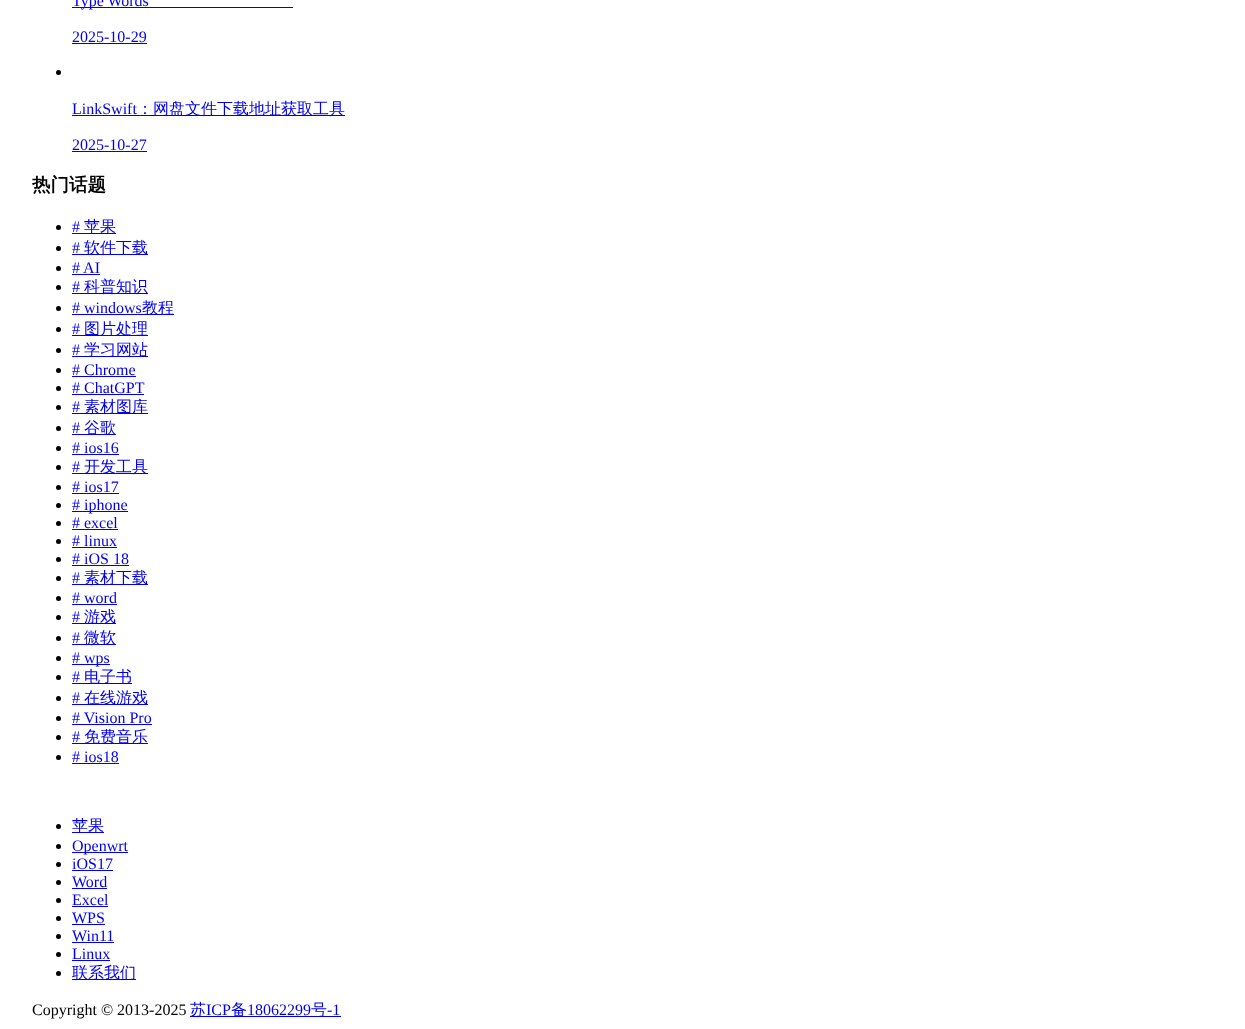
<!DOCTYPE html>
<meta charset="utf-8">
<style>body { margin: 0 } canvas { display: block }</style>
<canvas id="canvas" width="1245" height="1029"></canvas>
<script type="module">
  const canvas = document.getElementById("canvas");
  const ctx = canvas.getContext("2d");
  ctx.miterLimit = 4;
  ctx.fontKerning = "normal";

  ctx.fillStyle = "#ffffff";
  ctx.fillRect(0, 0, 1245, 1029);
  ctx.fillStyle = "#0000ee";
  ctx.fillRect(72, 7, 221, 1);
  ctx.font = "16px Liberation Serif";
  ctx.fillText("Type Words", 72, 6);
  ctx.fillText("2025-10-29", 72, 42);
  ctx.fillRect(72, 43, 75, 1);
  ctx.fillStyle = "#000000";
  ctx.beginPath();
  ctx.arc(58.5, 72.5, 2.5, 0, Math.PI * 2);
  ctx.fill();
  ctx.fillStyle = "#0000ee";
  ctx.fillText("LinkSwift", 72, 114);
  ctx.fillRect(72, 115, 273, 1);
  ctx.font = "500 16px WenQuanYi Zen Hei";
  ctx.fillText("：网盘文件下载地址获取工具", 137, 114);
  ctx.font = "16px Liberation Serif";
  ctx.fillText("2025-10-27", 72, 150);
  ctx.fillRect(72, 151, 75, 1);
  ctx.font = "bold 18.5px WenQuanYi Zen Hei";
  ctx.fillStyle = "#000000";
  ctx.fillText("热门话题", 32, 191);
  ctx.beginPath();
  ctx.arc(58.5, 227.5, 2.5, 0, Math.PI * 2);
  ctx.fill();
  ctx.font = "16px Liberation Serif";
  ctx.fillStyle = "#0000ee";
  ctx.fillText("#", 72, 232);
  ctx.fillRect(72, 233, 44, 1);
  ctx.font = "500 16px WenQuanYi Zen Hei";
  ctx.fillText("苹果", 84, 232);
  ctx.fillStyle = "#000000";
  ctx.beginPath();
  ctx.arc(58.5, 248.5, 2.5, 0, Math.PI * 2);
  ctx.fill();
  ctx.font = "16px Liberation Serif";
  ctx.fillStyle = "#0000ee";
  ctx.fillText("#", 72, 253);
  ctx.fillRect(72, 254, 76, 1);
  ctx.font = "500 16px WenQuanYi Zen Hei";
  ctx.fillText("软件下载", 84, 253);
  ctx.fillStyle = "#000000";
  ctx.beginPath();
  ctx.arc(58.5, 268.5, 2.5, 0, Math.PI * 2);
  ctx.fill();
  ctx.font = "16px Liberation Serif";
  ctx.fillStyle = "#0000ee";
  ctx.fillText("# AI", 72, 273);
  ctx.fillRect(72, 274, 28, 1);
  ctx.fillStyle = "#000000";
  ctx.beginPath();
  ctx.arc(58.5, 287.5, 2.5, 0, Math.PI * 2);
  ctx.fill();
  ctx.fillStyle = "#0000ee";
  ctx.fillText("#", 72, 292);
  ctx.fillRect(72, 293, 76, 1);
  ctx.font = "500 16px WenQuanYi Zen Hei";
  ctx.fillText("科普知识", 84, 292);
  ctx.fillStyle = "#000000";
  ctx.beginPath();
  ctx.arc(58.5, 308.5, 2.5, 0, Math.PI * 2);
  ctx.fill();
  ctx.font = "16px Liberation Serif";
  ctx.fillStyle = "#0000ee";
  ctx.fillText("# windows", 72, 313);
  ctx.fillRect(72, 314, 102, 1);
  ctx.font = "500 16px WenQuanYi Zen Hei";
  ctx.fillText("教程", 142, 313);
  ctx.fillStyle = "#000000";
  ctx.beginPath();
  ctx.arc(58.5, 329.5, 2.5, 0, Math.PI * 2);
  ctx.fill();
  ctx.font = "16px Liberation Serif";
  ctx.fillStyle = "#0000ee";
  ctx.fillText("#", 72, 334);
  ctx.fillRect(72, 335, 76, 1);
  ctx.font = "500 16px WenQuanYi Zen Hei";
  ctx.fillText("图片处理", 84, 334);
  ctx.fillStyle = "#000000";
  ctx.beginPath();
  ctx.arc(58.5, 350.5, 2.5, 0, Math.PI * 2);
  ctx.fill();
  ctx.font = "16px Liberation Serif";
  ctx.fillStyle = "#0000ee";
  ctx.fillText("#", 72, 355);
  ctx.fillRect(72, 356, 76, 1);
  ctx.font = "500 16px WenQuanYi Zen Hei";
  ctx.fillText("学习网站", 84, 355);
  ctx.fillStyle = "#000000";
  ctx.beginPath();
  ctx.arc(58.5, 370.5, 2.5, 0, Math.PI * 2);
  ctx.fill();
  ctx.font = "16px Liberation Serif";
  ctx.fillStyle = "#0000ee";
  ctx.fillText("# Chrome", 72, 375);
  ctx.fillRect(72, 376, 64, 1);
  ctx.fillStyle = "#000000";
  ctx.beginPath();
  ctx.arc(58.5, 388.5, 2.5, 0, Math.PI * 2);
  ctx.fill();
  ctx.fillStyle = "#0000ee";
  ctx.fillText("# ChatGPT", 72, 393);
  ctx.fillRect(72, 394, 72, 1);
  ctx.fillStyle = "#000000";
  ctx.beginPath();
  ctx.arc(58.5, 407.5, 2.5, 0, Math.PI * 2);
  ctx.fill();
  ctx.fillStyle = "#0000ee";
  ctx.fillText("#", 72, 412);
  ctx.fillRect(72, 413, 76, 1);
  ctx.font = "500 16px WenQuanYi Zen Hei";
  ctx.fillText("素材图库", 84, 412);
  ctx.fillStyle = "#000000";
  ctx.beginPath();
  ctx.arc(58.5, 428.5, 2.5, 0, Math.PI * 2);
  ctx.fill();
  ctx.font = "16px Liberation Serif";
  ctx.fillStyle = "#0000ee";
  ctx.fillText("#", 72, 433);
  ctx.fillRect(72, 434, 44, 1);
  ctx.font = "500 16px WenQuanYi Zen Hei";
  ctx.fillText("谷歌", 84, 433);
  ctx.fillStyle = "#000000";
  ctx.beginPath();
  ctx.arc(58.5, 448.5, 2.5, 0, Math.PI * 2);
  ctx.fill();
  ctx.font = "16px Liberation Serif";
  ctx.fillStyle = "#0000ee";
  ctx.fillText("# ios16", 72, 453);
  ctx.fillRect(72, 454, 47, 1);
  ctx.fillStyle = "#000000";
  ctx.beginPath();
  ctx.arc(58.5, 467.5, 2.5, 0, Math.PI * 2);
  ctx.fill();
  ctx.fillStyle = "#0000ee";
  ctx.fillText("#", 72, 472);
  ctx.fillRect(72, 473, 76, 1);
  ctx.font = "500 16px WenQuanYi Zen Hei";
  ctx.fillText("开发工具", 84, 472);
  ctx.fillStyle = "#000000";
  ctx.beginPath();
  ctx.arc(58.5, 487.5, 2.5, 0, Math.PI * 2);
  ctx.fill();
  ctx.font = "16px Liberation Serif";
  ctx.fillStyle = "#0000ee";
  ctx.fillText("# ios17", 72, 492);
  ctx.fillRect(72, 493, 47, 1);
  ctx.fillStyle = "#000000";
  ctx.beginPath();
  ctx.arc(58.5, 505.5, 2.5, 0, Math.PI * 2);
  ctx.fill();
  ctx.fillStyle = "#0000ee";
  ctx.fillRect(72, 511, 56, 1);
  ctx.fillText("# iphone", 72, 510);
  ctx.fillStyle = "#000000";
  ctx.beginPath();
  ctx.arc(58.5, 523.5, 2.5, 0, Math.PI * 2);
  ctx.fill();
  ctx.fillStyle = "#0000ee";
  ctx.fillText("# excel", 72, 528);
  ctx.fillRect(72, 529, 46, 1);
  ctx.fillStyle = "#000000";
  ctx.beginPath();
  ctx.arc(58.5, 541.5, 2.5, 0, Math.PI * 2);
  ctx.fill();
  ctx.fillStyle = "#0000ee";
  ctx.fillText("# linux", 72, 546);
  ctx.fillRect(72, 547, 45, 1);
  ctx.fillStyle = "#000000";
  ctx.beginPath();
  ctx.arc(58.5, 559.5, 2.5, 0, Math.PI * 2);
  ctx.fill();
  ctx.fillStyle = "#0000ee";
  ctx.fillText("# iOS 18", 72, 564);
  ctx.fillRect(72, 565, 57, 1);
  ctx.fillStyle = "#000000";
  ctx.beginPath();
  ctx.arc(58.5, 578.5, 2.5, 0, Math.PI * 2);
  ctx.fill();
  ctx.fillStyle = "#0000ee";
  ctx.fillText("#", 72, 583);
  ctx.fillRect(72, 584, 76, 1);
  ctx.font = "500 16px WenQuanYi Zen Hei";
  ctx.fillText("素材下载", 84, 583);
  ctx.fillStyle = "#000000";
  ctx.beginPath();
  ctx.arc(58.5, 598.5, 2.5, 0, Math.PI * 2);
  ctx.fill();
  ctx.font = "16px Liberation Serif";
  ctx.fillStyle = "#0000ee";
  ctx.fillText("# word", 72, 603);
  ctx.fillRect(72, 604, 45, 1);
  ctx.fillStyle = "#000000";
  ctx.beginPath();
  ctx.arc(58.5, 617.5, 2.5, 0, Math.PI * 2);
  ctx.fill();
  ctx.fillStyle = "#0000ee";
  ctx.fillText("#", 72, 622);
  ctx.fillRect(72, 623, 44, 1);
  ctx.font = "500 16px WenQuanYi Zen Hei";
  ctx.fillText("游戏", 84, 622);
  ctx.fillStyle = "#000000";
  ctx.beginPath();
  ctx.arc(58.5, 638.5, 2.5, 0, Math.PI * 2);
  ctx.fill();
  ctx.font = "16px Liberation Serif";
  ctx.fillStyle = "#0000ee";
  ctx.fillText("#", 72, 643);
  ctx.fillRect(72, 644, 44, 1);
  ctx.font = "500 16px WenQuanYi Zen Hei";
  ctx.fillText("微软", 84, 643);
  ctx.fillStyle = "#000000";
  ctx.beginPath();
  ctx.arc(58.5, 658.5, 2.5, 0, Math.PI * 2);
  ctx.fill();
  ctx.fillStyle = "#0000ee";
  ctx.fillRect(72, 664, 38, 1);
  ctx.font = "16px Liberation Serif";
  ctx.fillText("# wps", 72, 663);
  ctx.fillStyle = "#000000";
  ctx.beginPath();
  ctx.arc(58.5, 677.5, 2.5, 0, Math.PI * 2);
  ctx.fill();
  ctx.fillStyle = "#0000ee";
  ctx.fillText("#", 72, 682);
  ctx.fillRect(72, 683, 60, 1);
  ctx.font = "500 16px WenQuanYi Zen Hei";
  ctx.fillText("电子书", 84, 682);
  ctx.fillStyle = "#000000";
  ctx.beginPath();
  ctx.arc(58.5, 698.5, 2.5, 0, Math.PI * 2);
  ctx.fill();
  ctx.font = "16px Liberation Serif";
  ctx.fillStyle = "#0000ee";
  ctx.fillText("#", 72, 703);
  ctx.fillRect(72, 704, 76, 1);
  ctx.font = "500 16px WenQuanYi Zen Hei";
  ctx.fillText("在线游戏", 84, 703);
  ctx.fillStyle = "#000000";
  ctx.beginPath();
  ctx.arc(58.5, 718.5, 2.5, 0, Math.PI * 2);
  ctx.fill();
  ctx.font = "16px Liberation Serif";
  ctx.fillStyle = "#0000ee";
  ctx.fillText("# Vision Pro", 72, 723);
  ctx.fillRect(72, 724, 80, 1);
  ctx.fillStyle = "#000000";
  ctx.beginPath();
  ctx.arc(58.5, 737.5, 2.5, 0, Math.PI * 2);
  ctx.fill();
  ctx.fillStyle = "#0000ee";
  ctx.fillText("#", 72, 742);
  ctx.fillRect(72, 743, 76, 1);
  ctx.font = "500 16px WenQuanYi Zen Hei";
  ctx.fillText("免费音乐", 84, 742);
  ctx.fillStyle = "#000000";
  ctx.beginPath();
  ctx.arc(58.5, 757.5, 2.5, 0, Math.PI * 2);
  ctx.fill();
  ctx.font = "16px Liberation Serif";
  ctx.fillStyle = "#0000ee";
  ctx.fillText("# ios18", 72, 762);
  ctx.fillRect(72, 763, 47, 1);
  ctx.fillStyle = "#000000";
  ctx.beginPath();
  ctx.arc(58.5, 826.5, 2.5, 0, Math.PI * 2);
  ctx.fill();
  ctx.fillStyle = "#0000ee";
  ctx.fillRect(72, 832, 32, 1);
  ctx.font = "500 16px WenQuanYi Zen Hei";
  ctx.fillText("苹果", 72, 831);
  ctx.fillStyle = "#000000";
  ctx.beginPath();
  ctx.arc(58.5, 846.5, 2.5, 0, Math.PI * 2);
  ctx.fill();
  ctx.fillStyle = "#0000ee";
  ctx.fillRect(72, 852, 56, 1);
  ctx.font = "16px Liberation Serif";
  ctx.fillText("Openwrt", 72, 851);
  ctx.fillStyle = "#000000";
  ctx.beginPath();
  ctx.arc(58.5, 864.5, 2.5, 0, Math.PI * 2);
  ctx.fill();
  ctx.fillStyle = "#0000ee";
  ctx.fillText("iOS17", 72, 869);
  ctx.fillRect(72, 870, 41, 1);
  ctx.fillStyle = "#000000";
  ctx.beginPath();
  ctx.arc(58.5, 882.5, 2.5, 0, Math.PI * 2);
  ctx.fill();
  ctx.fillStyle = "#0000ee";
  ctx.fillText("Word", 72, 887);
  ctx.fillRect(72, 888, 35, 1);
  ctx.fillStyle = "#000000";
  ctx.beginPath();
  ctx.arc(58.5, 900.5, 2.5, 0, Math.PI * 2);
  ctx.fill();
  ctx.fillStyle = "#0000ee";
  ctx.fillText("Excel", 72, 905);
  ctx.fillRect(72, 906, 36, 1);
  ctx.fillStyle = "#000000";
  ctx.beginPath();
  ctx.arc(58.5, 918.5, 2.5, 0, Math.PI * 2);
  ctx.fill();
  ctx.fillStyle = "#0000ee";
  ctx.fillText("WPS", 72, 923);
  ctx.fillRect(72, 924, 33, 1);
  ctx.fillStyle = "#000000";
  ctx.beginPath();
  ctx.arc(58.5, 936.5, 2.5, 0, Math.PI * 2);
  ctx.fill();
  ctx.fillStyle = "#0000ee";
  ctx.fillText("Win11", 72, 941);
  ctx.fillRect(72, 942, 42, 1);
  ctx.fillStyle = "#000000";
  ctx.beginPath();
  ctx.arc(58.5, 954.5, 2.5, 0, Math.PI * 2);
  ctx.fill();
  ctx.fillStyle = "#0000ee";
  ctx.fillText("Linux", 72, 959);
  ctx.fillRect(72, 960, 38, 1);
  ctx.fillStyle = "#000000";
  ctx.beginPath();
  ctx.arc(58.5, 973.5, 2.5, 0, Math.PI * 2);
  ctx.fill();
  ctx.fillStyle = "#0000ee";
  ctx.fillRect(72, 979, 64, 1);
  ctx.font = "500 16px WenQuanYi Zen Hei";
  ctx.fillText("联系我们", 72, 978);
  ctx.font = "16px Liberation Serif";
  ctx.fillStyle = "#000000";
  ctx.fillText("Copyright © 2013-2025", 32, 1015);
  ctx.fillStyle = "#0000ee";
  ctx.fillRect(190, 1016, 151, 1);
  ctx.font = "500 16px WenQuanYi Zen Hei";
  ctx.fillText("苏", 190, 1015);
  ctx.font = "16px Liberation Serif";
  ctx.fillText("ICP", 206, 1015);
  ctx.font = "500 16px WenQuanYi Zen Hei";
  ctx.fillText("备", 231, 1015);
  ctx.font = "16px Liberation Serif";
  ctx.fillText("18062299", 247, 1015);
  ctx.font = "500 16px WenQuanYi Zen Hei";
  ctx.fillText("号", 311, 1015);
  ctx.font = "16px Liberation Serif";
  ctx.fillText("-1", 327, 1015);
</script>
